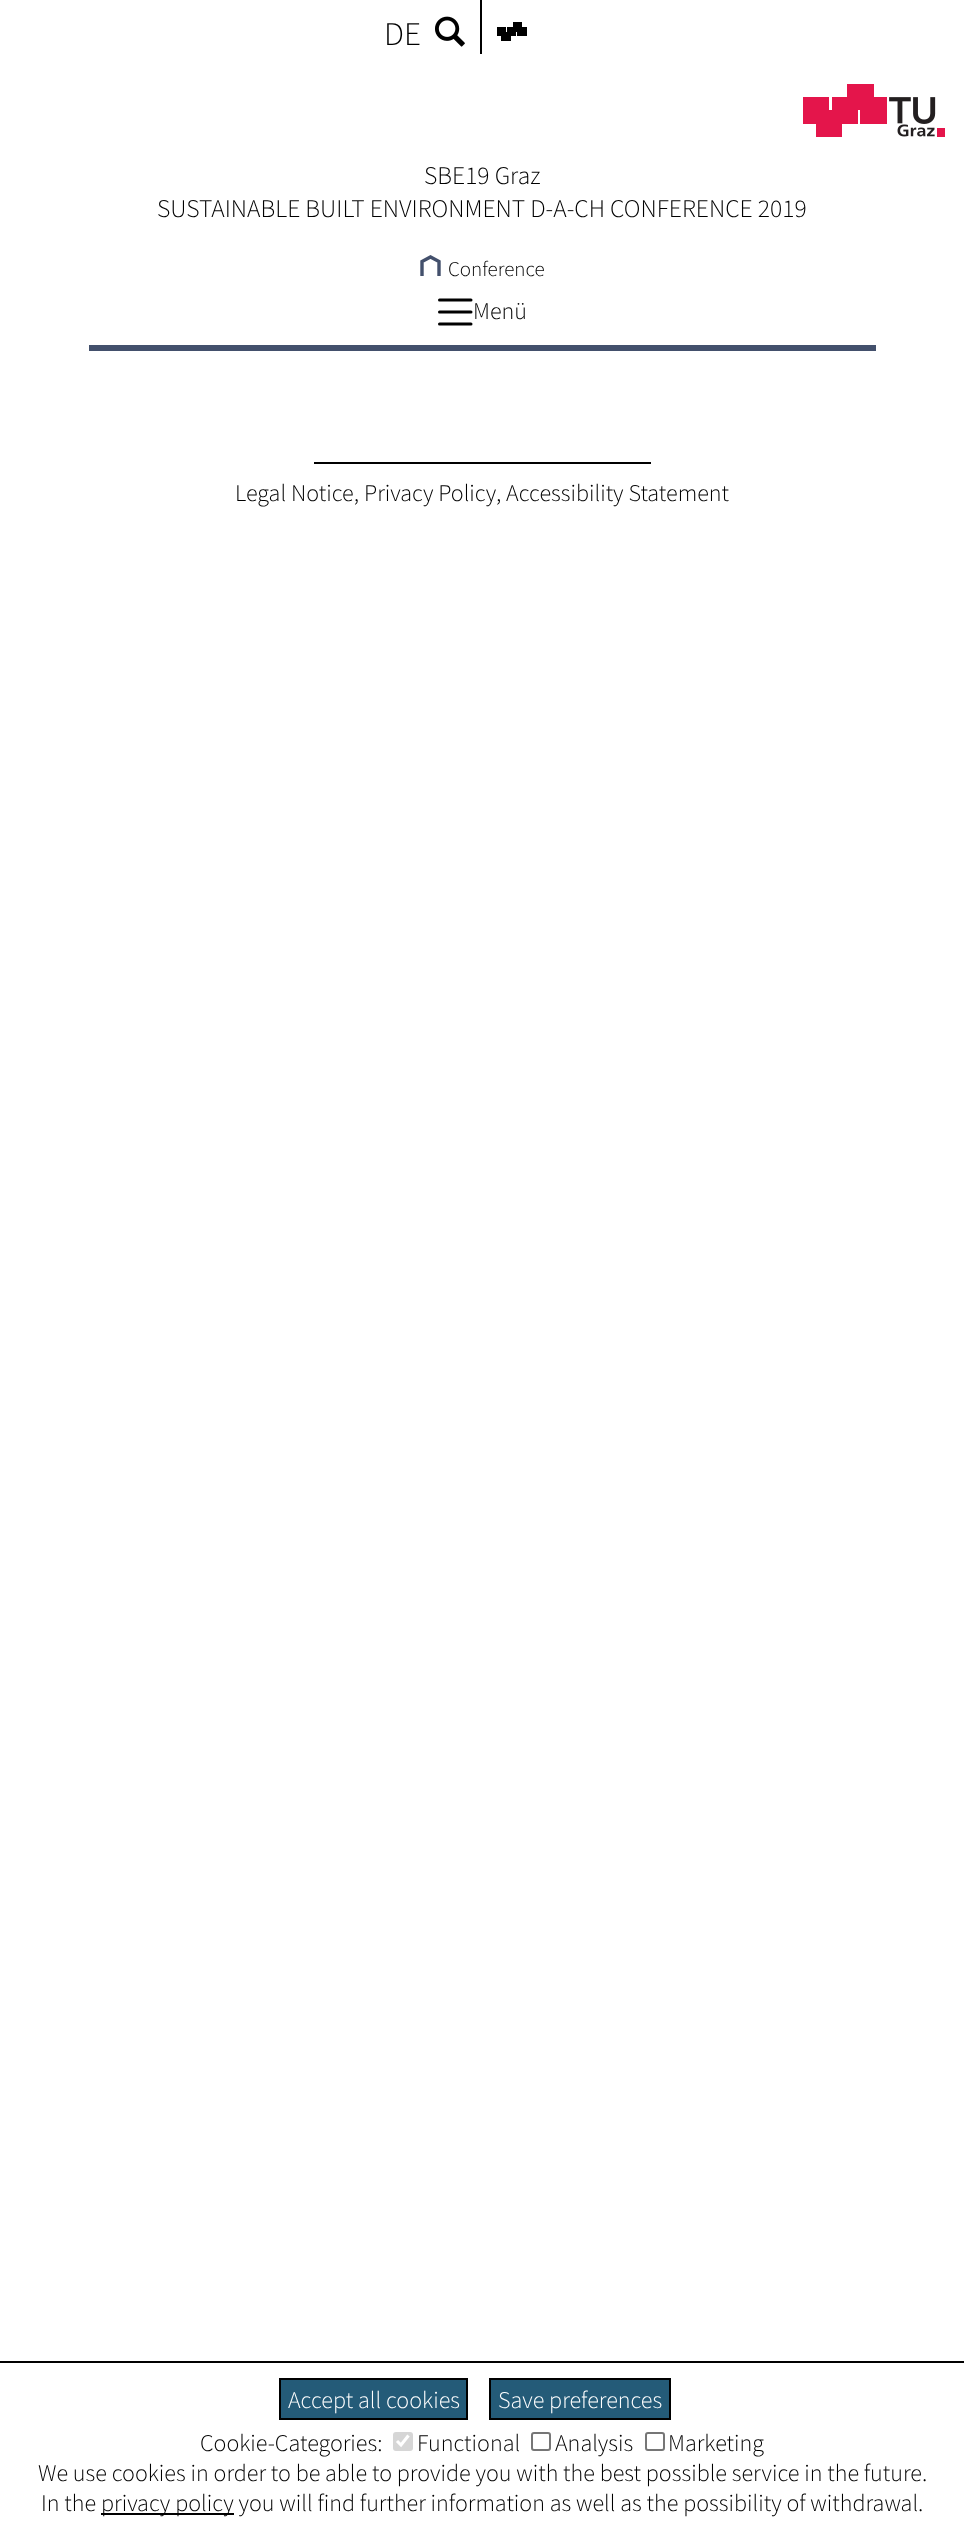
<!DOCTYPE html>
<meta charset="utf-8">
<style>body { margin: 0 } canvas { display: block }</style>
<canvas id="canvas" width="964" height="2539"></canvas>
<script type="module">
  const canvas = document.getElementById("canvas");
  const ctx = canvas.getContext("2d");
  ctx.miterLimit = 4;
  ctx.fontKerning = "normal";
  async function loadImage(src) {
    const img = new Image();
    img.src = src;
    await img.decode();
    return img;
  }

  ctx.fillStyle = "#ffffff";
  ctx.fillRect(0, 0, 964, 2539);
  ctx.fillStyle = "#000000";
  ctx.fillRect(480, 0, 2, 54);
  ctx.font = "300 33px Source Sans Pro";
  ctx.fillText("DE", 384, 45);
  ctx.drawImage(await loadImage("img1.png"), 435, 16, 30, 31);
  ctx.fillRect(497, 27, 9, 9);
  ctx.fillRect(507, 27, 9, 9);
  ctx.fillRect(517, 27, 10, 9);
  ctx.fillRect(513, 22, 9, 10);
  ctx.fillRect(501, 32, 10, 9);
  ctx.drawImage(await loadImage("img2.png"), 803, 84, 142, 53);
  ctx.font = "300 25.5px Source Sans Pro";
  ctx.fillText("SBE19 Graz", 424, 184);
  ctx.fillText("SUSTAINABLE BUILT ENVIRONMENT D-A-CH CONFERENCE 2019", 157, 217);
  ctx.font = "300 21px Source Sans Pro";
  ctx.fillText("Conference", 448, 276);
  ctx.save();
  ctx.beginPath();
  ctx.rect(420, 255, 21, 21);
  ctx.clip();
  ctx.beginPath();
  ctx.moveTo(422, 274.5);
  ctx.lineTo(422, 261.5);
  ctx.lineTo(430.5, 257);
  ctx.lineTo(439, 261.5);
  ctx.lineTo(439, 274.5);
  ctx.strokeStyle = "#43506c";
  ctx.lineWidth = 3.4;
  ctx.lineCap = "square";
  ctx.stroke();
  ctx.restore();
  ctx.beginPath();
  ctx.moveTo(439.5, 300);
  ctx.lineTo(471, 300);
  ctx.moveTo(439.5, 312);
  ctx.lineTo(471, 312);
  ctx.moveTo(439.5, 324);
  ctx.lineTo(471, 324);
  ctx.strokeStyle = "#000000";
  ctx.lineWidth = 3;
  ctx.lineCap = "round";
  ctx.stroke();
  ctx.font = "300 24px Source Sans Pro";
  ctx.fillText("Menü", 473, 319);
  ctx.fillStyle = "#43506c";
  ctx.fillRect(89, 345, 787, 6);
  ctx.fillStyle = "#000000";
  ctx.fillRect(314, 462, 337, 2);
  ctx.fillText("Legal Notice,", 235, 501);
  ctx.fillText("Privacy Policy", 364, 501);
  ctx.fillText(", Accessibility Statement", 496, 501);
  ctx.fillRect(0, 2361, 964, 2);
  ctx.fillStyle = "#245b78";
  ctx.beginPath();
  ctx.rect(280, 2379, 187, 40);
  ctx.fill();
  ctx.lineWidth = 2;
  ctx.stroke();
  ctx.fillStyle = "#ffffff";
  ctx.fillText("Accept all cookies", 288, 2408);
  ctx.fillStyle = "#245b78";
  ctx.beginPath();
  ctx.rect(490, 2379, 180, 40);
  ctx.fill();
  ctx.stroke();
  ctx.fillStyle = "#ffffff";
  ctx.fillText("Save preferences", 498, 2408);
  ctx.fillStyle = "#000000";
  ctx.fillText("Cookie-Categories:", 200, 2451);
  ctx.fillStyle = "#d6d6d6";
  ctx.beginPath();
  ctx.roundRect(393, 2432, 20, 19, 3);
  ctx.fill();
  ctx.beginPath();
  ctx.moveTo(397, 2441);
  ctx.lineTo(401, 2445);
  ctx.lineTo(408.5, 2435.5);
  ctx.strokeStyle = "#ffffff";
  ctx.lineWidth = 3.1;
  ctx.lineCap = "butt";
  ctx.stroke();
  ctx.fillStyle = "#000000";
  ctx.fillText("Functional", 417, 2451);
  ctx.beginPath();
  ctx.roundRect(532, 2433, 18, 17, 2);
  ctx.strokeStyle = "#767676";
  ctx.lineWidth = 2;
  ctx.stroke();
  ctx.fillText("Analysis", 555, 2451);
  ctx.beginPath();
  ctx.roundRect(646, 2433, 18, 17, 2);
  ctx.stroke();
  ctx.fillText("Marketing", 668, 2451);
  ctx.fillText("We use cookies in order to be able to provide you with the best possible service in the future.", 38, 2481);
  ctx.fillText("In the", 41, 2511);
  ctx.fillRect(101, 2513, 133, 2);
  ctx.fillText("privacy policy you will find further information as well as the possibility of withdrawal.", 101, 2511);
</script>
